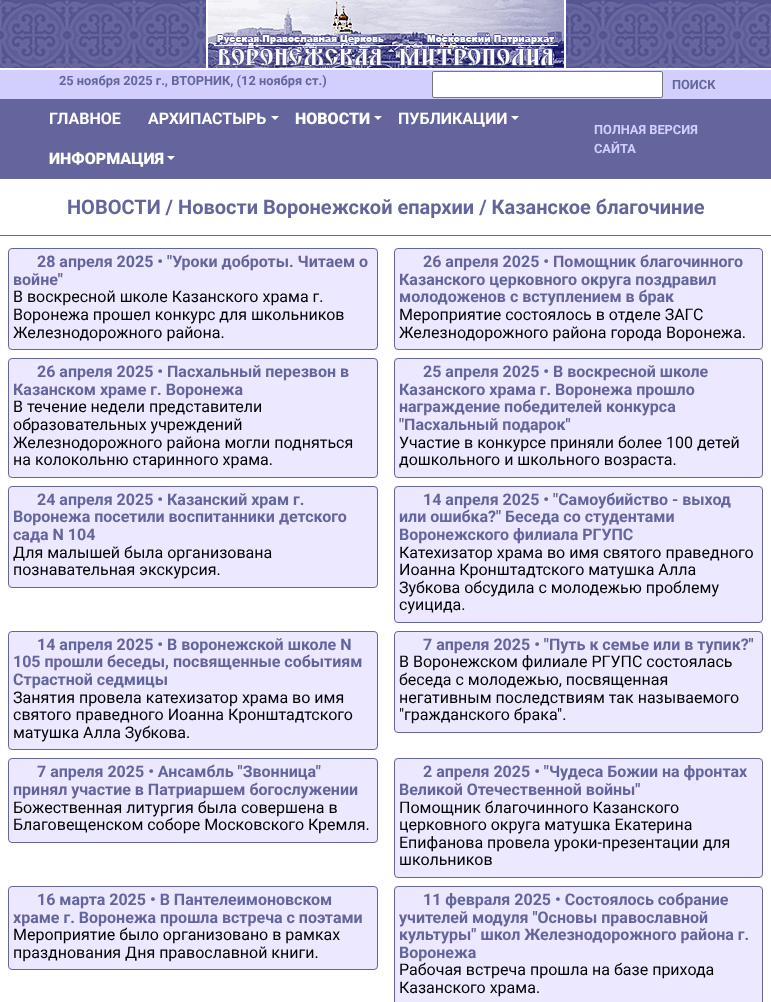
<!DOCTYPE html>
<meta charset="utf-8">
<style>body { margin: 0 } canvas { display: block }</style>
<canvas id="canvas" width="771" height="1002"></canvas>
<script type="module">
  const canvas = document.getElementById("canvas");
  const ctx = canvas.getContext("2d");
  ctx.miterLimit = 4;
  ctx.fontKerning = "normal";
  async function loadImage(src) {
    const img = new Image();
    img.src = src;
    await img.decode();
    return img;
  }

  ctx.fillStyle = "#ffffff";
  ctx.fillRect(0, 0, 771, 1002);
  ctx.drawImage(await loadImage("img1.png"), 0, 0, 771, 70);
  ctx.drawImage(await loadImage("img2.png"), 206, 0, 360, 70);
  ctx.fillStyle = "#d2cfff";
  ctx.fillRect(0, 70, 771, 29);
  ctx.font = "bold 12.8px Roboto";
  ctx.fillStyle = "#65659d";
  ctx.fillText("25 ноября 2025 г., ВТОРНИК, (12 ноября ст.)", 59, 85);
  ctx.fillStyle = "#ffffff";
  ctx.beginPath();
  ctx.roundRect(432.5, 71.5, 230, 26, 1.5);
  ctx.fill();
  ctx.strokeStyle = "#767676";
  ctx.stroke();
  ctx.fillStyle = "#65659d";
  ctx.fillText("ПОИСК", 672, 89);
  ctx.fillRect(0, 99, 771, 80);
  ctx.font = "bold 16px Roboto";
  ctx.fillStyle = "#ffffff";
  ctx.fillText("ГЛАВНОЕ", 49, 124);
  ctx.fillText("АРХИПАСТЫРЬ", 148, 124);
  ctx.beginPath();
  ctx.moveTo(271, 116);
  ctx.lineTo(279, 116);
  ctx.lineTo(275, 120);
  ctx.closePath();
  ctx.fill();
  ctx.font = "900 16px Roboto";
  ctx.fillText("НОВОСТИ", 295, 124);
  ctx.beginPath();
  ctx.moveTo(374, 116);
  ctx.lineTo(382, 116);
  ctx.lineTo(378, 120);
  ctx.closePath();
  ctx.fill();
  ctx.font = "bold 16px Roboto";
  ctx.fillText("ПУБЛИКАЦИИ", 398, 124);
  ctx.beginPath();
  ctx.moveTo(511, 116);
  ctx.lineTo(519, 116);
  ctx.lineTo(515, 120);
  ctx.closePath();
  ctx.fill();
  ctx.font = "900 16px Roboto";
  ctx.fillText("ИНФОРМАЦИЯ", 49, 164);
  ctx.beginPath();
  ctx.moveTo(167, 156);
  ctx.lineTo(175, 156);
  ctx.lineTo(171, 160);
  ctx.closePath();
  ctx.fill();
  ctx.font = "bold 12.8px Roboto";
  ctx.fillStyle = "#d2cfff";
  ctx.fillText("ПОЛНАЯ ВЕРСИЯ", 594, 134);
  ctx.fillText("САЙТА", 594, 153);
  ctx.font = "bold 20px Roboto";
  ctx.fillStyle = "#65659d";
  ctx.fillText("НОВОСТИ / Новости Воронежской епархии / Казанское благочиние", 67, 214);
  ctx.fillRect(0, 235, 771, 1);
  ctx.fillStyle = "#ebe8ff";
  ctx.beginPath();
  ctx.roundRect(8.5, 248.5, 369, 101, 3.5);
  ctx.fill();
  ctx.strokeStyle = "#65659d";
  ctx.stroke();
  ctx.font = "bold 16px Roboto";
  ctx.fillStyle = "#65659d";
  ctx.fillText("28 апреля 2025 • \"Уроки доброты. Читаем о", 37, 267);
  ctx.fillText("войне\"", 13, 285);
  ctx.font = "16px Roboto";
  ctx.fillStyle = "#000000";
  ctx.fillText("В воскресной школе Казанского храма г.", 13, 302);
  ctx.fillText("Воронежа прошел конкурс для школьников", 13, 320);
  ctx.fillText("Железнодорожного района.", 13, 338);
  ctx.fillStyle = "#ebe8ff";
  ctx.beginPath();
  ctx.roundRect(394.5, 248.5, 368, 101, 3.5);
  ctx.fill();
  ctx.stroke();
  ctx.font = "bold 16px Roboto";
  ctx.fillStyle = "#65659d";
  ctx.fillText("26 апреля 2025 • Помощник благочинного", 423, 267);
  ctx.fillText("Казанского церковного округа поздравил", 399, 285);
  ctx.fillText("молодоженов с вступлением в брак", 399, 302);
  ctx.font = "16px Roboto";
  ctx.fillStyle = "#000000";
  ctx.fillText("Мероприятие состоялось в отделе ЗАГС", 399, 320);
  ctx.fillText("Железнодорожного района города Воронежа.", 399, 338);
  ctx.fillStyle = "#ebe8ff";
  ctx.beginPath();
  ctx.roundRect(8.5, 358.5, 369, 119, 3.5);
  ctx.fill();
  ctx.stroke();
  ctx.font = "bold 16px Roboto";
  ctx.fillStyle = "#65659d";
  ctx.fillText("26 апреля 2025 • Пасхальный перезвон в", 37, 377);
  ctx.fillText("Казанском храме г. Воронежа", 13, 395);
  ctx.font = "16px Roboto";
  ctx.fillStyle = "#000000";
  ctx.fillText("В течение недели представители", 13, 412);
  ctx.fillText("образовательных учреждений", 13, 430);
  ctx.fillText("Железнодорожного района могли подняться", 13, 448);
  ctx.fillText("на колокольню старинного храма.", 13, 465);
  ctx.fillStyle = "#ebe8ff";
  ctx.beginPath();
  ctx.roundRect(394.5, 358.5, 368, 119, 3.5);
  ctx.fill();
  ctx.stroke();
  ctx.font = "bold 16px Roboto";
  ctx.fillStyle = "#65659d";
  ctx.fillText("25 апреля 2025 • В воскресной школе", 423, 377);
  ctx.fillText("Казанского храма г. Воронежа прошло", 399, 395);
  ctx.fillText("награждение победителей конкурса", 399, 412);
  ctx.fillText("\"Пасхальный подарок\"", 399, 430);
  ctx.font = "16px Roboto";
  ctx.fillStyle = "#000000";
  ctx.fillText("Участие в конкурсе приняли более 100 детей", 399, 448);
  ctx.fillText("дошкольного и школьного возраста.", 399, 465);
  ctx.fillStyle = "#ebe8ff";
  ctx.beginPath();
  ctx.roundRect(8.5, 486.5, 369, 101, 3.5);
  ctx.fill();
  ctx.stroke();
  ctx.font = "bold 16px Roboto";
  ctx.fillStyle = "#65659d";
  ctx.fillText("24 апреля 2025 • Казанский храм г.", 37, 505);
  ctx.fillText("Воронежа посетили воспитанники детского", 13, 522);
  ctx.fillText("сада N 104", 13, 540);
  ctx.font = "16px Roboto";
  ctx.fillStyle = "#000000";
  ctx.fillText("Для малышей была организована", 13, 558);
  ctx.fillText("познавательная экскурсия.", 13, 575);
  ctx.fillStyle = "#ebe8ff";
  ctx.beginPath();
  ctx.roundRect(394.5, 486.5, 368, 136, 3.5);
  ctx.fill();
  ctx.stroke();
  ctx.font = "bold 16px Roboto";
  ctx.fillStyle = "#65659d";
  ctx.fillText("14 апреля 2025 • \"Самоубийство - выход", 423, 505);
  ctx.fillText("или ошибка?\" Беседа со студентами", 399, 522);
  ctx.fillText("Воронежского филиала РГУПС", 399, 540);
  ctx.font = "16px Roboto";
  ctx.fillStyle = "#000000";
  ctx.fillText("Катехизатор храма во имя святого праведного", 399, 558);
  ctx.fillText("Иоанна Кронштадтского матушка Алла", 399, 575);
  ctx.fillText("Зубкова обсудила с молодежью проблему", 399, 593);
  ctx.fillText("суицида.", 399, 610);
  ctx.fillStyle = "#ebe8ff";
  ctx.beginPath();
  ctx.roundRect(8.5, 631.5, 369, 118, 3.5);
  ctx.fill();
  ctx.stroke();
  ctx.font = "bold 16px Roboto";
  ctx.fillStyle = "#65659d";
  ctx.fillText("14 апреля 2025 • В воронежской школе N", 37, 650);
  ctx.fillText("105 прошли беседы, посвященные событиям", 13, 667);
  ctx.fillText("Страстной седмицы", 13, 685);
  ctx.font = "16px Roboto";
  ctx.fillStyle = "#000000";
  ctx.fillText("Занятия провела катехизатор храма во имя", 13, 703);
  ctx.fillText("святого праведного Иоанна Кронштадтского", 13, 720);
  ctx.fillText("матушка Алла Зубкова.", 13, 738);
  ctx.fillStyle = "#ebe8ff";
  ctx.beginPath();
  ctx.roundRect(394.5, 631.5, 368, 101, 3.5);
  ctx.fill();
  ctx.stroke();
  ctx.font = "bold 16px Roboto";
  ctx.fillStyle = "#65659d";
  ctx.fillText("7 апреля 2025 • \"Путь к семье или в тупик?\"", 423, 650);
  ctx.font = "16px Roboto";
  ctx.fillStyle = "#000000";
  ctx.fillText("В Воронежском филиале РГУПС состоялась", 399, 667);
  ctx.fillText("беседа с молодежью, посвященная", 399, 685);
  ctx.fillText("негативным последствиям так называемого", 399, 703);
  ctx.fillText("\"гражданского брака\".", 399, 720);
  ctx.fillStyle = "#ebe8ff";
  ctx.beginPath();
  ctx.roundRect(8.5, 758.5, 369, 84, 3.5);
  ctx.fill();
  ctx.stroke();
  ctx.font = "bold 16px Roboto";
  ctx.fillStyle = "#65659d";
  ctx.fillText("7 апреля 2025 • Ансамбль \"Звонница\"", 37, 777);
  ctx.fillText("принял участие в Патриаршем богослужении", 13, 795);
  ctx.font = "16px Roboto";
  ctx.fillStyle = "#000000";
  ctx.fillText("Божественная литургия была совершена в", 13, 813);
  ctx.fillText("Благовещенском соборе Московского Кремля.", 13, 830);
  ctx.fillStyle = "#ebe8ff";
  ctx.beginPath();
  ctx.roundRect(394.5, 758.5, 368, 119, 3.5);
  ctx.fill();
  ctx.stroke();
  ctx.font = "bold 16px Roboto";
  ctx.fillStyle = "#65659d";
  ctx.fillText("2 апреля 2025 • \"Чудеса Божии на фронтах", 423, 777);
  ctx.fillText("Великой Отечественной войны\"", 399, 795);
  ctx.font = "16px Roboto";
  ctx.fillStyle = "#000000";
  ctx.fillText("Помощник благочинного Казанского", 399, 813);
  ctx.fillText("церковного округа матушка Екатерина", 399, 830);
  ctx.fillText("Епифанова провела уроки-презентации для", 399, 848);
  ctx.fillText("школьников", 399, 865);
  ctx.fillStyle = "#ebe8ff";
  ctx.beginPath();
  ctx.roundRect(8.5, 886.5, 369, 83, 3.5);
  ctx.fill();
  ctx.stroke();
  ctx.font = "bold 16px Roboto";
  ctx.fillStyle = "#65659d";
  ctx.fillText("16 марта 2025 • В Пантелеимоновском", 37, 905);
  ctx.fillText("храме г. Воронежа прошла встреча с поэтами", 13, 923);
  ctx.font = "16px Roboto";
  ctx.fillStyle = "#000000";
  ctx.fillText("Мероприятие было организовано в рамках", 13, 940);
  ctx.fillText("празднования Дня православной книги.", 13, 958);
  ctx.fillStyle = "#ebe8ff";
  ctx.beginPath();
  ctx.roundRect(394.5, 886.5, 368, 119, 3.5);
  ctx.fill();
  ctx.stroke();
  ctx.font = "bold 16px Roboto";
  ctx.fillStyle = "#65659d";
  ctx.fillText("11 февраля 2025 • Состоялось собрание", 423, 905);
  ctx.fillText("учителей модуля \"Основы православной", 399, 923);
  ctx.fillText("культуры\" школ Железнодорожного района г.", 399, 940);
  ctx.fillText("Воронежа", 399, 958);
  ctx.font = "16px Roboto";
  ctx.fillStyle = "#000000";
  ctx.fillText("Рабочая встреча прошла на базе прихода", 399, 975);
  ctx.fillText("Казанского храма.", 399, 993);
</script>
